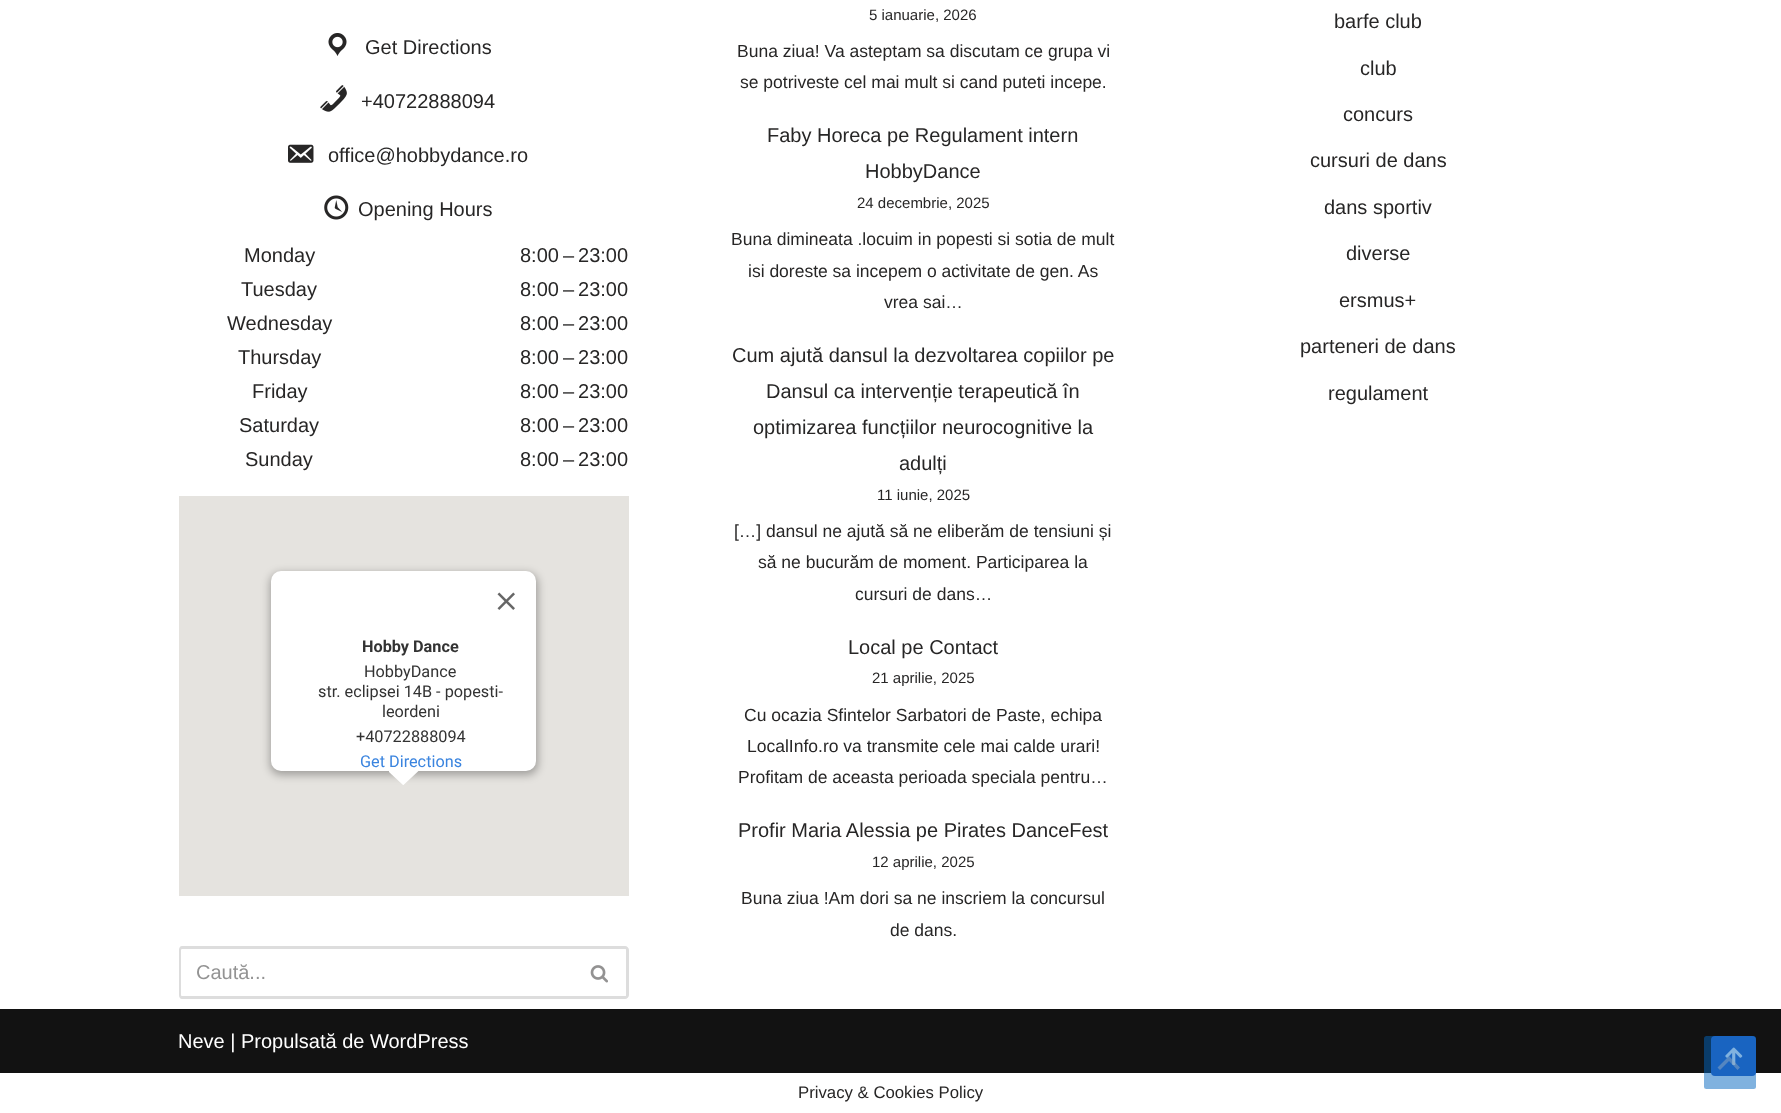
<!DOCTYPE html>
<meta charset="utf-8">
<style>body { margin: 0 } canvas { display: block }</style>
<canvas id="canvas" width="1781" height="1113"></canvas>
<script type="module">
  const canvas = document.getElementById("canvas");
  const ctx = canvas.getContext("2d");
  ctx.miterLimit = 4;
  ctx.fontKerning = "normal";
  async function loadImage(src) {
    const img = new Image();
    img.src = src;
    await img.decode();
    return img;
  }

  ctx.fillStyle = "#ffffff";
  ctx.fillRect(0, 0, 1781, 1113);
  ctx.drawImage(await loadImage("img1.png"), 328, 33, 19, 23);
  ctx.font = "20px Liberation Sans";
  ctx.fillStyle = "#272626";
  ctx.fillText("Get Directions", 365, 54);
  ctx.drawImage(await loadImage("img2.png"), 320, 85, 27, 27);
  ctx.fillText("+40722888094", 361, 108);
  ctx.drawImage(await loadImage("img3.png"), 288, 144, 26, 19);
  ctx.fillText("office@hobbydance.ro", 328, 162);
  ctx.drawImage(await loadImage("img4.png"), 324, 195, 25, 25);
  ctx.fillText("Opening Hours", 358, 216);
  ctx.fillText("Monday", 244, 262);
  ctx.fillText("8:00 – 23:00", 520, 262);
  ctx.fillText("Tuesday", 241, 296);
  ctx.fillText("8:00 – 23:00", 520, 296);
  ctx.fillText("Wednesday", 227, 330);
  ctx.fillText("8:00 – 23:00", 520, 330);
  ctx.fillText("Thursday", 238, 364);
  ctx.fillText("8:00 – 23:00", 520, 364);
  ctx.fillText("Friday", 252, 398);
  ctx.fillText("8:00 – 23:00", 520, 398);
  ctx.fillText("Saturday", 239, 432);
  ctx.fillText("8:00 – 23:00", 520, 432);
  ctx.fillText("Sunday", 245, 466);
  ctx.fillText("8:00 – 23:00", 520, 466);
  ctx.fillStyle = "#e5e3df";
  ctx.fillRect(179, 496, 450, 400);
  ctx.fillStyle = "rgba(0, 0, 0, 0.3)";
  ctx.filter = "blur(4.5px)";
  ctx.beginPath();
  ctx.roundRect(270, 573, 268, 202, 11);
  ctx.fill();
  ctx.filter = "none";
  ctx.fillStyle = "#ffffff";
  ctx.beginPath();
  ctx.roundRect(271, 571, 265, 200, 10);
  ctx.fill();
  ctx.drawImage(await loadImage("img5.png"), 497, 592, 18, 18);
  ctx.font = "bold 16.25px Roboto";
  ctx.fillStyle = "#333333";
  ctx.fillText("Hobby Dance", 362, 652);
  ctx.font = "16.25px Roboto";
  ctx.fillText("HobbyDance", 364, 677);
  ctx.fillText("str. eclipsei 14B - popesti-", 318, 697);
  ctx.fillText("leordeni", 382, 717);
  ctx.fillText("+40722888094", 356, 742);
  ctx.fillStyle = "#3a84df";
  ctx.fillText("Get Directions", 360, 767);
  ctx.fillStyle = "#ffffff";
  ctx.beginPath();
  ctx.moveTo(389, 772);
  ctx.lineTo(389, 770.5);
  ctx.lineTo(419, 770.5);
  ctx.lineTo(403.5, 785);
  ctx.lineTo(403, 785);
  ctx.closePath();
  ctx.fill();
  ctx.fillStyle = "#dddddd";
  ctx.beginPath();
  ctx.moveTo(182, 946);
  ctx.lineTo(572, 946);
  ctx.lineTo(572, 999);
  ctx.lineTo(182, 999);
  ctx.bezierCurveTo(180, 999, 179, 997, 179, 995);
  ctx.lineTo(179, 950);
  ctx.bezierCurveTo(179, 948, 180, 946, 182, 946);
  ctx.closePath();
  ctx.moveTo(182, 949);
  ctx.lineTo(572, 949);
  ctx.lineTo(572, 996);
  ctx.lineTo(182, 996);
  ctx.bezierCurveTo(182, 996, 181, 996, 181, 995);
  ctx.lineTo(181, 950);
  ctx.bezierCurveTo(181, 949, 182, 949, 182, 949);
  ctx.closePath();
  ctx.fill("evenodd");
  ctx.font = "20px Liberation Sans";
  ctx.fillStyle = "#939393";
  ctx.fillText("Caută...", 196, 979);
  ctx.fillStyle = "#dddddd";
  ctx.beginPath();
  ctx.moveTo(572, 946);
  ctx.lineTo(625, 946);
  ctx.bezierCurveTo(627, 946, 629, 948, 629, 950);
  ctx.lineTo(629, 995);
  ctx.bezierCurveTo(629, 997, 627, 999, 625, 999);
  ctx.lineTo(572, 999);
  ctx.closePath();
  ctx.moveTo(572, 949);
  ctx.lineTo(625, 949);
  ctx.bezierCurveTo(626, 949, 626, 949, 626, 950);
  ctx.lineTo(626, 995);
  ctx.bezierCurveTo(626, 996, 626, 996, 625, 996);
  ctx.lineTo(572, 996);
  ctx.closePath();
  ctx.fill("evenodd");
  ctx.drawImage(await loadImage("img6.png"), 590, 965, 18, 18);
  ctx.font = "15px Liberation Sans";
  ctx.fillStyle = "#272626";
  ctx.fillText("5 ianuarie, 2026", 869, 20);
  ctx.font = "17.5px Liberation Sans";
  ctx.fillText("Buna ziua! Va asteptam sa discutam ce grupa vi", 737, 57);
  ctx.fillText("se potriveste cel mai mult si cand puteti incepe.", 740, 88);
  ctx.font = "20px Liberation Sans";
  ctx.fillText("Faby Horeca pe Regulament intern", 767, 142);
  ctx.fillText("HobbyDance", 865, 178);
  ctx.font = "15px Liberation Sans";
  ctx.fillText("24 decembrie, 2025", 857, 208);
  ctx.font = "17.5px Liberation Sans";
  ctx.fillText("Buna dimineata .locuim in popesti si sotia de mult", 731, 245);
  ctx.fillText("isi doreste sa incepem o activitate de gen. As", 748, 277);
  ctx.fillText("vrea sai…", 884, 308);
  ctx.font = "20px Liberation Sans";
  ctx.fillText("Cum ajută dansul la dezvoltarea copiilor pe", 732, 362);
  ctx.fillText("Dansul ca intervenție terapeutică în", 766, 398);
  ctx.fillText("optimizarea funcțiilor neurocognitive la", 753, 434);
  ctx.fillText("adulți", 899, 470);
  ctx.font = "15px Liberation Sans";
  ctx.fillText("11 iunie, 2025", 877, 500);
  ctx.font = "17.5px Liberation Sans";
  ctx.fillText("[…] dansul ne ajută să ne eliberăm de tensiuni și", 734, 537);
  ctx.fillText("să ne bucurăm de moment. Participarea la", 758, 568);
  ctx.fillText("cursuri de dans…", 855, 600);
  ctx.font = "20px Liberation Sans";
  ctx.fillText("Local pe Contact", 848, 654);
  ctx.font = "15px Liberation Sans";
  ctx.fillText("21 aprilie, 2025", 872, 683);
  ctx.font = "17.5px Liberation Sans";
  ctx.fillText("Cu ocazia Sfintelor Sarbatori de Paste, echipa", 744, 721);
  ctx.fillText("LocalInfo.ro va transmite cele mai calde urari!", 747, 752);
  ctx.fillText("Profitam de aceasta perioada speciala pentru…", 738, 783);
  ctx.font = "20px Liberation Sans";
  ctx.fillText("Profir Maria Alessia pe Pirates DanceFest", 738, 837);
  ctx.font = "15px Liberation Sans";
  ctx.fillText("12 aprilie, 2025", 872, 867);
  ctx.font = "17.5px Liberation Sans";
  ctx.fillText("Buna ziua !Am dori sa ne inscriem la concursul", 741, 904);
  ctx.fillText("de dans.", 890, 936);
  ctx.font = "20px Liberation Sans";
  ctx.fillText("barfe club", 1334, 28);
  ctx.fillText("club", 1360, 75);
  ctx.fillText("concurs", 1343, 121);
  ctx.fillText("cursuri de dans", 1310, 167);
  ctx.fillText("dans sportiv", 1324, 214);
  ctx.fillText("diverse", 1346, 260);
  ctx.fillText("ersmus+", 1339, 307);
  ctx.fillText("parteneri de dans", 1300, 353);
  ctx.fillText("regulament", 1328, 400);
  ctx.fillStyle = "#121212";
  ctx.fillRect(0, 1009, 1781, 64);
  ctx.fillStyle = "#ffffff";
  ctx.fillText("Neve | Propulsată de WordPress", 178, 1048);
  ctx.fillStyle = "#3162c3";
  ctx.beginPath();
  ctx.roundRect(1711, 1036, 45, 40, 4);
  ctx.fill();
  ctx.drawImage(await loadImage("img7.png"), 1725, 1047, 18, 18);
  ctx.fillStyle = "rgba(1, 102, 191, 0.5)";
  ctx.beginPath();
  ctx.roundRect(1704, 1036, 52, 53, 2.5);
  ctx.fill();
  ctx.fillStyle = "rgba(143, 168, 191, 0.5)";
  ctx.beginPath();
  ctx.moveTo(1737.5, 1070);
  ctx.lineTo(1729, 1061);
  ctx.lineTo(1720, 1070);
  ctx.lineTo(1717.5, 1067.5);
  ctx.lineTo(1729, 1056);
  ctx.lineTo(1740, 1067.5);
  ctx.closePath();
  ctx.fill();
  ctx.font = "16.75px Liberation Sans";
  ctx.fillStyle = "#272626";
  ctx.fillText("Privacy & Cookies Policy", 798, 1098);
</script>
